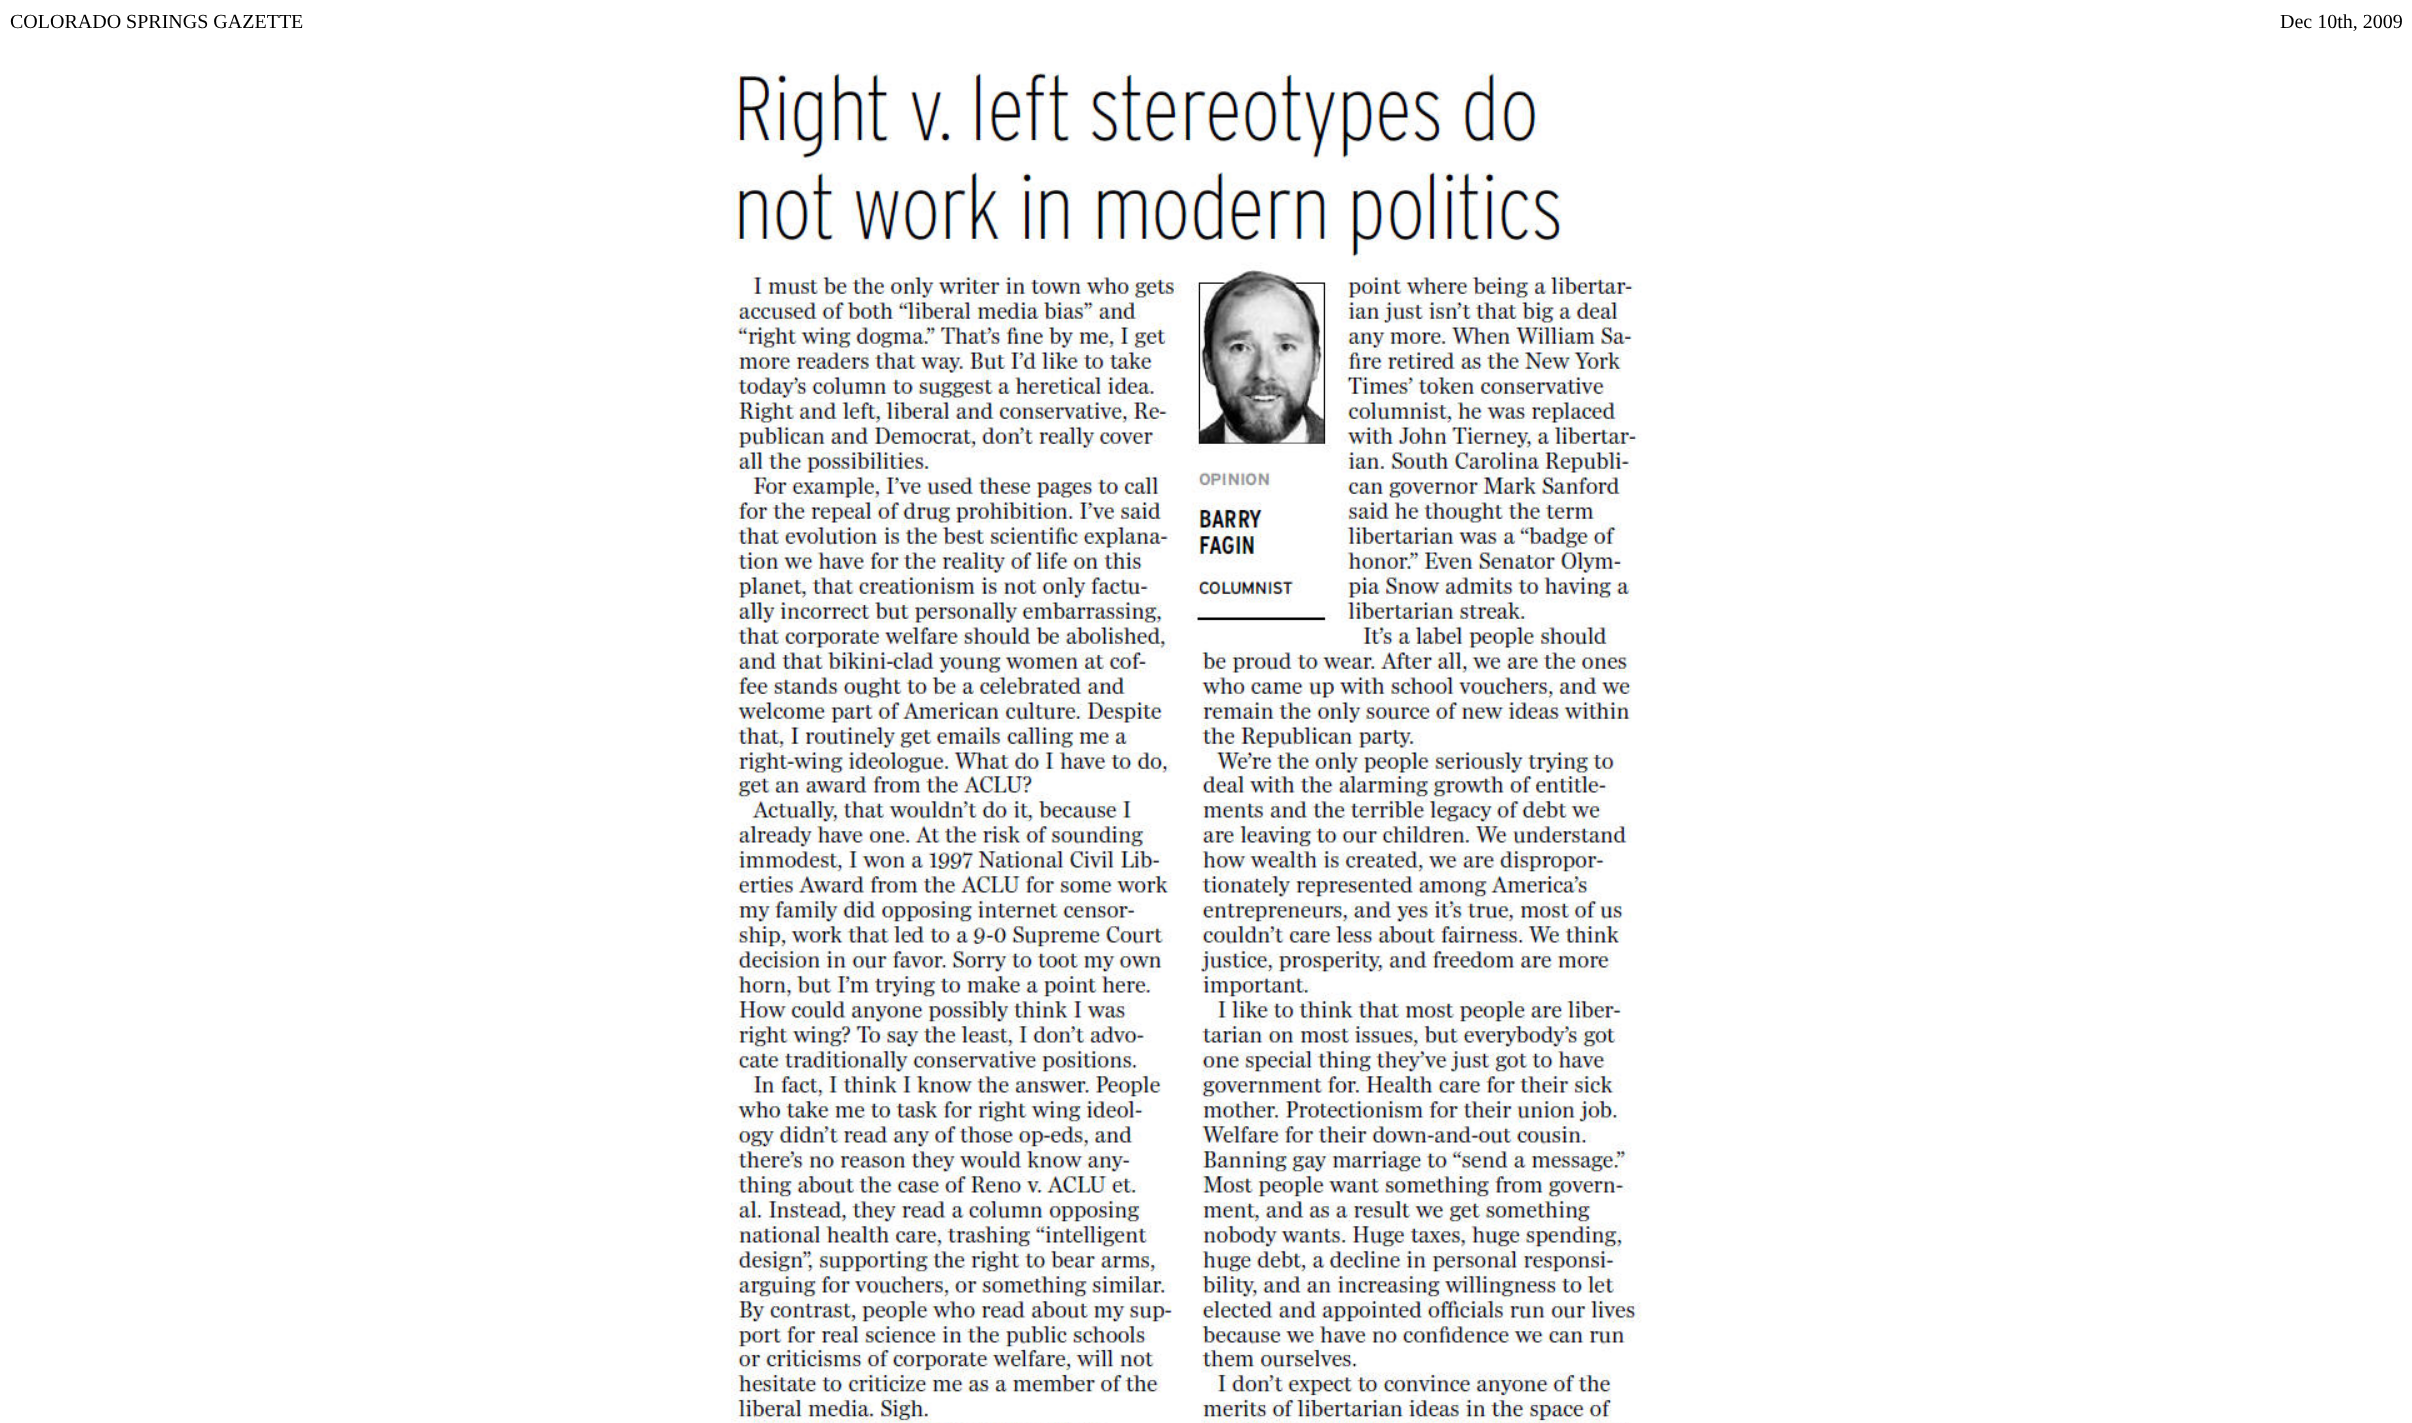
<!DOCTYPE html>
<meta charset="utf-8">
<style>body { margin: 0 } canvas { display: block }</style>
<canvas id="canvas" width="2412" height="1423"></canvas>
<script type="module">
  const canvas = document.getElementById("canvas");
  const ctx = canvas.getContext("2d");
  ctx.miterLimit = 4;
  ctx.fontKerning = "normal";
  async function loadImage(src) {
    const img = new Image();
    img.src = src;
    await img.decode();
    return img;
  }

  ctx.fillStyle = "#ffffff";
  ctx.fillRect(0, 0, 2412, 1423);
  ctx.font = "20px Liberation Serif";
  ctx.fillStyle = "#000000";
  ctx.fillText("COLORADO SPRINGS GAZETTE", 10, 28);
  ctx.fillText("Dec 10th, 2009", 2280, 28);
  ctx.drawImage(await loadImage("img1.png"), 731, 72, 911, 1351);
</script>
